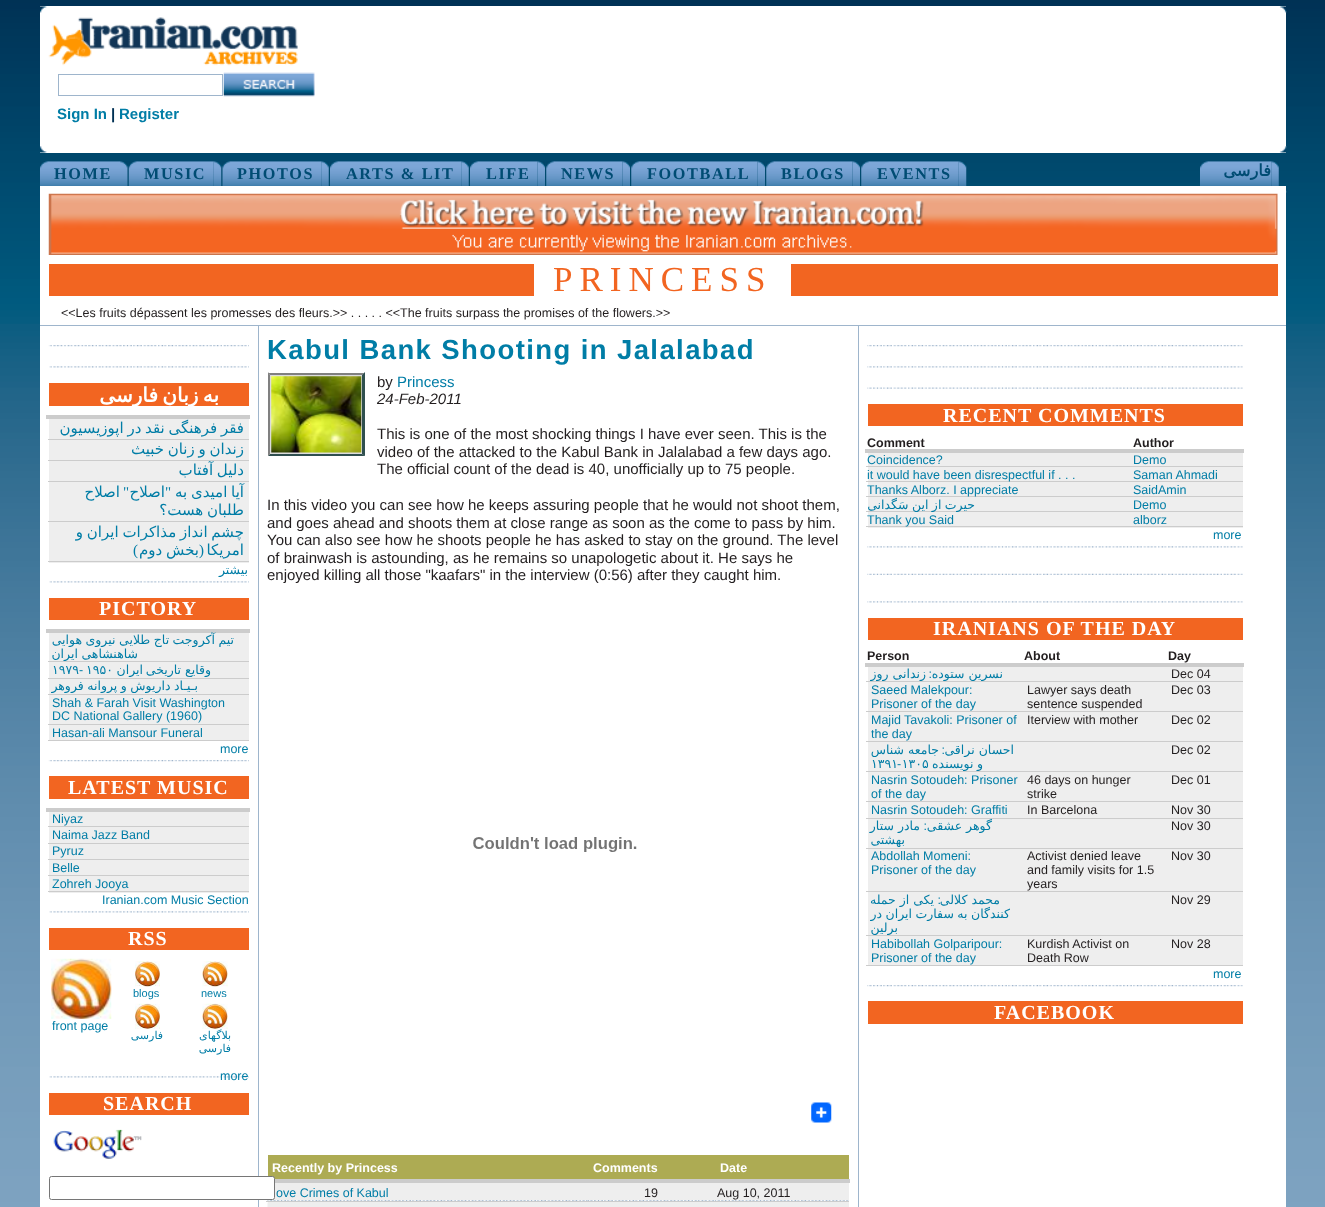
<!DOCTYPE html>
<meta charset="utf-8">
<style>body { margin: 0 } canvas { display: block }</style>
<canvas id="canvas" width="1325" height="1207"></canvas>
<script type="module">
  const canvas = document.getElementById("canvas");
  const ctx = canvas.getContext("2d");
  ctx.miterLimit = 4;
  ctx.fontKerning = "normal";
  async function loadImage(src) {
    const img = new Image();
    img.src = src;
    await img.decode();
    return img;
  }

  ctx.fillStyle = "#ffffff";
  ctx.fillRect(0, 0, 1325, 1207);
  ctx.drawImage(await loadImage("img1.png"), 0, 0, 1325, 1207);
  ctx.fillRect(40, 6, 1246, 147);
  ctx.drawImage(await loadImage("img2.png"), 40, 6, 1247, 7);
  ctx.drawImage(await loadImage("img3.png"), 48, 17, 250, 49);
  ctx.strokeStyle = "#9eb5cc";
  ctx.strokeRect(58.5, 74.5, 164, 21);
  ctx.drawImage(await loadImage("img4.png"), 223, 72, 92, 25);
  ctx.font = "bold 15px Liberation Sans";
  ctx.fillStyle = "#007da6";
  ctx.fillText("Sign In", 57, 119);
  ctx.fillStyle = "#003154";
  ctx.fillText("|", 111, 119);
  ctx.fillStyle = "#007da6";
  ctx.fillText("Register", 119, 119);
  ctx.drawImage(await loadImage("img5.png"), 40, 146, 1247, 7);
  ctx.drawImage(await loadImage("img6.png"), 120, 161, 8, 25);
  ctx.drawImage(await loadImage("img7.png"), 40, 161, 80, 25);
  ctx.letterSpacing = "1.6px";
  ctx.font = "bold 16.25px Liberation Serif";
  ctx.fillStyle = "#004c73";
  ctx.fillText("HOME", 54, 179);
  ctx.drawImage(await loadImage("img8.png"), 213, 161, 9, 25);
  ctx.drawImage(await loadImage("img9.png"), 128, 161, 86, 25);
  ctx.fillText("MUSIC", 144, 179);
  ctx.drawImage(await loadImage("img10.png"), 321, 161, 8, 25);
  ctx.drawImage(await loadImage("img11.png"), 222, 161, 100, 25);
  ctx.fillText("PHOTOS", 237, 179);
  ctx.drawImage(await loadImage("img10.png"), 461, 161, 8, 25);
  ctx.drawImage(await loadImage("img12.png"), 330, 161, 132, 25);
  ctx.fillText("ARTS & LIT", 346, 179);
  ctx.drawImage(await loadImage("img13.png"), 537, 161, 8, 25);
  ctx.drawImage(await loadImage("img14.png"), 470, 161, 68, 25);
  ctx.fillText("LIFE", 486, 179);
  ctx.drawImage(await loadImage("img15.png"), 622, 161, 8, 25);
  ctx.drawImage(await loadImage("img16.png"), 546, 161, 77, 25);
  ctx.fillText("NEWS", 561, 179);
  ctx.drawImage(await loadImage("img15.png"), 757, 161, 8, 25);
  ctx.drawImage(await loadImage("img17.png"), 631, 161, 127, 25);
  ctx.fillText("FOOTBALL", 647, 179);
  ctx.drawImage(await loadImage("img15.png"), 852, 161, 8, 25);
  ctx.drawImage(await loadImage("img18.png"), 766, 161, 87, 25);
  ctx.fillText("BLOGS", 781, 179);
  ctx.drawImage(await loadImage("img19.png"), 958, 161, 9, 25);
  ctx.drawImage(await loadImage("img20.png"), 861, 161, 98, 25);
  ctx.fillText("EVENTS", 877, 179);
  ctx.drawImage(await loadImage("img10.png"), 1271, 161, 8, 25);
  ctx.drawImage(await loadImage("img21.png"), 1200, 161, 72, 25);
  ctx.direction = "rtl";
  ctx.font = "bold 16.25px DejaVu Sans";
  ctx.fillText("فارسی", 1271, 176);
  ctx.fillStyle = "#ffffff";
  ctx.fillRect(40, 326, 1246, 881);
  ctx.drawImage(await loadImage("img22.png"), 1286, 186, 1, 7);
  ctx.fillRect(40, 186, 1246, 139);
  ctx.fillStyle = "#9eb5cc";
  ctx.fillRect(40, 325, 1246, 1);
  ctx.drawImage(await loadImage("img23.png"), 48, 193, 1230, 62);
  ctx.fillStyle = "#f26521";
  ctx.fillRect(49, 264, 1229, 32);
  ctx.fillStyle = "#ffffff";
  ctx.fillRect(534, 264, 257, 32);
  ctx.letterSpacing = "7px";
  ctx.direction = "ltr";
  ctx.font = "35px Liberation Serif";
  ctx.fillStyle = "#f26521";
  ctx.fillText("PRINCESS", 553, 291);
  ctx.letterSpacing = "0px";
  ctx.font = "12.5px Liberation Sans";
  ctx.fillStyle = "#221e1f";
  ctx.fillText("<<Les fruits dépassent les promesses des fleurs.>> . . . . . <<The fruits surpass the promises of the flowers.>>", 61, 317);
  ctx.fillStyle = "#9eb5cc";
  ctx.fillRect(258, 326, 1, 881);
  ctx.drawImage(await loadImage("img24.png"), 48, 345, 201, 2);
  ctx.drawImage(await loadImage("img25.png"), 49, 366, 200, 2);
  ctx.drawImage(await loadImage("img25.png"), 49, 581, 200, 2);
  ctx.fillStyle = "#f26521";
  ctx.fillRect(49, 383, 200, 23);
  ctx.letterSpacing = "1px";
  ctx.wordSpacing = "-3px";
  ctx.direction = "rtl";
  ctx.font = "bold 20px DejaVu Sans";
  ctx.fillStyle = "#ffffff";
  ctx.fillText("به زبان فارسی", 219, 402);
  ctx.fillStyle = "#cccccc";
  ctx.fillRect(46, 415, 204, 4);
  ctx.fillStyle = "#eeeeee";
  ctx.fillRect(49, 419, 200, 20);
  ctx.fillStyle = "#cccccc";
  ctx.fillRect(48, 439, 201, 1);
  ctx.letterSpacing = "0px";
  ctx.wordSpacing = "-1px";
  ctx.font = "15px DejaVu Sans";
  ctx.fillStyle = "#007da6";
  ctx.fillText("فقر فرهنگی نقد در اپوزیسیون", 244, 433);
  ctx.fillStyle = "#eeeeee";
  ctx.fillRect(49, 440, 200, 20);
  ctx.fillStyle = "#cccccc";
  ctx.fillRect(48, 460, 201, 1);
  ctx.fillStyle = "#007da6";
  ctx.fillText("زندان و زنان خبیث", 244, 454);
  ctx.fillStyle = "#eeeeee";
  ctx.fillRect(49, 461, 200, 102);
  ctx.fillStyle = "#cccccc";
  ctx.fillRect(48, 481, 201, 1);
  ctx.fillStyle = "#007da6";
  ctx.fillText("دلیل آفتاب", 244, 475);
  ctx.fillStyle = "#cccccc";
  ctx.fillRect(48, 521, 201, 1);
  ctx.wordSpacing = "0px";
  ctx.fillStyle = "#007da6";
  ctx.fillText("اصلاح", 120, 497);
  ctx.font = "15px Liberation Serif";
  ctx.fillText("\"", 129, 497);
  ctx.font = "15px DejaVu Sans";
  ctx.fillText("اصلاح", 165, 497);
  ctx.font = "15px Liberation Serif";
  ctx.fillText("\"", 171, 497);
  ctx.wordSpacing = "-1px";
  ctx.font = "15px DejaVu Sans";
  ctx.fillText("آیا امیدی به", 244, 497);
  ctx.fillText("طلبان هست؟", 244, 515);
  ctx.fillStyle = "#cccccc";
  ctx.fillRect(48, 561, 201, 1);
  ctx.fillStyle = "#007da6";
  ctx.fillText("چشم انداز مذاکرات ایران و", 244, 537);
  ctx.wordSpacing = "0px";
  ctx.font = "15px Liberation Serif";
  ctx.fillText(")", 138, 555);
  ctx.wordSpacing = "-1px";
  ctx.font = "15px DejaVu Sans";
  ctx.fillText("بخش دوم", 199, 555);
  ctx.wordSpacing = "0px";
  ctx.font = "15px Liberation Serif";
  ctx.fillText("(", 204, 555);
  ctx.font = "15px DejaVu Sans";
  ctx.fillText("امریکا", 244, 555);
  ctx.font = "12.5px DejaVu Sans";
  ctx.fillText("بیشتر", 248, 574);
  ctx.drawImage(await loadImage("img24.png"), 48, 760, 201, 2);
  ctx.fillStyle = "#f26521";
  ctx.fillRect(49, 598, 200, 22);
  ctx.letterSpacing = "1px";
  ctx.direction = "ltr";
  ctx.font = "bold 20px Liberation Serif";
  ctx.fillStyle = "#ffffff";
  ctx.fillText("PICTORY", 99, 615);
  ctx.fillStyle = "#cccccc";
  ctx.fillRect(46, 629, 204, 4);
  ctx.fillStyle = "#eeeeee";
  ctx.fillRect(49, 633, 200, 45);
  ctx.fillStyle = "#cccccc";
  ctx.fillRect(48, 661, 201, 1);
  ctx.letterSpacing = "0px";
  ctx.wordSpacing = "-0.5px";
  ctx.direction = "rtl";
  ctx.font = "12.5px DejaVu Sans";
  ctx.fillStyle = "#007da6";
  ctx.fillText("تیم آکروجت تاج طلایی نیروی هوایی", 234, 644);
  ctx.fillText("شاهنشاهی ایران", 138, 658);
  ctx.fillStyle = "#cccccc";
  ctx.fillRect(48, 678, 201, 1);
  ctx.wordSpacing = "0px";
  ctx.direction = "ltr";
  ctx.fillStyle = "#007da6";
  ctx.fillText("۱۹۷۹", 52, 674);
  ctx.font = "12.5px Liberation Sans";
  ctx.fillText("-", 79, 674);
  ctx.font = "12.5px DejaVu Sans";
  ctx.fillText("۱۹۵۰", 86, 674);
  ctx.direction = "rtl";
  ctx.fillText("ایران", 143, 674);
  ctx.fillText("وقایع تاریخی", 211, 674);
  ctx.fillStyle = "#eeeeee";
  ctx.fillRect(49, 679, 200, 15);
  ctx.fillStyle = "#cccccc";
  ctx.fillRect(48, 694, 201, 1);
  ctx.wordSpacing = "-0.5px";
  ctx.fillStyle = "#007da6";
  ctx.fillText("بـیـاد داریوش و پروانه فروهر", 198, 690);
  ctx.fillStyle = "#eeeeee";
  ctx.fillRect(49, 695, 200, 29);
  ctx.fillStyle = "#cccccc";
  ctx.fillRect(48, 724, 201, 1);
  ctx.wordSpacing = "0px";
  ctx.direction = "ltr";
  ctx.font = "12.5px Liberation Sans";
  ctx.fillStyle = "#007da6";
  ctx.fillText("Shah & Farah Visit Washington", 52, 707);
  ctx.fillText("DC National Gallery (1960)", 52, 720);
  ctx.fillStyle = "#eeeeee";
  ctx.fillRect(49, 725, 200, 15);
  ctx.fillStyle = "#cccccc";
  ctx.fillRect(48, 740, 201, 1);
  ctx.fillStyle = "#007da6";
  ctx.fillText("Hasan-ali Mansour Funeral", 52, 737);
  ctx.fillText("more", 220, 753);
  ctx.drawImage(await loadImage("img25.png"), 49, 911, 200, 2);
  ctx.fillStyle = "#f26521";
  ctx.fillRect(49, 776, 200, 23);
  ctx.letterSpacing = "1px";
  ctx.font = "bold 20px Liberation Serif";
  ctx.fillStyle = "#ffffff";
  ctx.fillText("LATEST MUSIC", 68, 794);
  ctx.fillStyle = "#cccccc";
  ctx.fillRect(46, 808, 204, 4);
  ctx.fillStyle = "#eeeeee";
  ctx.fillRect(49, 812, 200, 31);
  ctx.fillStyle = "#cccccc";
  ctx.fillRect(48, 826, 201, 1);
  ctx.letterSpacing = "0px";
  ctx.font = "12.5px Liberation Sans";
  ctx.fillStyle = "#007da6";
  ctx.fillText("Niyaz", 52, 823);
  ctx.fillStyle = "#cccccc";
  ctx.fillRect(48, 843, 201, 1);
  ctx.fillStyle = "#007da6";
  ctx.fillText("Naima Jazz Band", 52, 839);
  ctx.fillStyle = "#eeeeee";
  ctx.fillRect(49, 844, 200, 15);
  ctx.fillStyle = "#cccccc";
  ctx.fillRect(48, 859, 201, 1);
  ctx.fillStyle = "#007da6";
  ctx.fillText("Pyruz", 52, 855);
  ctx.fillStyle = "#eeeeee";
  ctx.fillRect(49, 860, 200, 15);
  ctx.fillStyle = "#cccccc";
  ctx.fillRect(48, 875, 201, 1);
  ctx.fillStyle = "#007da6";
  ctx.fillText("Belle", 52, 872);
  ctx.fillStyle = "#eeeeee";
  ctx.fillRect(49, 876, 200, 17);
  ctx.fillStyle = "#cccccc";
  ctx.fillRect(48, 891, 201, 1);
  ctx.fillStyle = "#007da6";
  ctx.fillText("Zohreh Jooya", 52, 888);
  ctx.fillText("Iranian.com Music Section", 102, 904);
  ctx.drawImage(await loadImage("img25.png"), 49, 1076, 200, 2);
  ctx.fillStyle = "#f26521";
  ctx.fillRect(49, 928, 200, 22);
  ctx.letterSpacing = "1px";
  ctx.font = "bold 20px Liberation Serif";
  ctx.fillStyle = "#ffffff";
  ctx.fillText("RSS", 128, 945);
  ctx.drawImage(await loadImage("img26.png"), 135, 961, 25, 26);
  ctx.letterSpacing = "0px";
  ctx.font = "11px Liberation Sans";
  ctx.fillStyle = "#007da6";
  ctx.fillText("blogs", 133, 997);
  ctx.drawImage(await loadImage("img27.png"), 202, 961, 26, 26);
  ctx.fillText("news", 201, 997);
  ctx.drawImage(await loadImage("img28.png"), 51, 958, 61, 61);
  ctx.font = "12.5px Liberation Sans";
  ctx.fillText("front page", 52, 1030);
  ctx.drawImage(await loadImage("img29.png"), 135, 1003, 25, 26);
  ctx.direction = "rtl";
  ctx.font = "11px DejaVu Sans";
  ctx.fillText("فارسی", 163, 1039);
  ctx.drawImage(await loadImage("img30.png"), 202, 1003, 26, 26);
  ctx.fillText("بلاگهای", 231, 1039);
  ctx.fillText("فارسی", 231, 1052);
  ctx.direction = "ltr";
  ctx.font = "12.5px Liberation Sans";
  ctx.fillText("more", 220, 1080);
  ctx.fillStyle = "#f26521";
  ctx.fillRect(49, 1093, 200, 22);
  ctx.letterSpacing = "1px";
  ctx.font = "bold 20px Liberation Serif";
  ctx.fillStyle = "#ffffff";
  ctx.fillText("SEARCH", 103, 1110);
  ctx.drawImage(await loadImage("img31.png"), 53, 1129, 89, 30);
  ctx.fillStyle = "#adab53";
  ctx.fillRect(268, 1155, 581, 24);
  ctx.fillStyle = "#eeeeee";
  ctx.fillRect(268, 1183, 581, 24);
  ctx.drawImage(await loadImage("img35.png"), 267, 1183, 321, 20);
  ctx.fillStyle = "#ffffff";
  ctx.beginPath();
  ctx.roundRect(49.5, 1176.5, 225, 23, 2);
  ctx.fill();
  ctx.strokeStyle = "#767676";
  ctx.stroke();
  ctx.fillStyle = "#9eb5cc";
  ctx.fillRect(858, 326, 1, 881);
  ctx.letterSpacing = "1.4px";
  ctx.font = "bold 27.5px Liberation Sans";
  ctx.fillStyle = "#007da6";
  ctx.fillText("Kabul Bank Shooting in Jalalabad", 267, 359);
  ctx.fillStyle = "#dcdcdc";
  ctx.fillRect(268, 373, 97, 83);
  ctx.save();
  ctx.beginPath();
  ctx.rect(268, 373, 97, 97);
  ctx.clip();
  ctx.fillStyle = "#808080";
  ctx.beginPath();
  ctx.moveTo(268, 372);
  ctx.lineTo(365, 372);
  ctx.lineTo(362, 375);
  ctx.lineTo(270, 375);
  ctx.closePath();
  ctx.fill();
  ctx.restore();
  ctx.fillStyle = "#2f4f4f";
  ctx.beginPath();
  ctx.moveTo(365, 372);
  ctx.lineTo(365, 456);
  ctx.lineTo(362, 454);
  ctx.lineTo(362, 375);
  ctx.closePath();
  ctx.fill();
  ctx.beginPath();
  ctx.moveTo(365, 456);
  ctx.lineTo(268, 456);
  ctx.lineTo(270, 454);
  ctx.lineTo(362, 454);
  ctx.closePath();
  ctx.fill();
  ctx.fillStyle = "#808080";
  ctx.beginPath();
  ctx.moveTo(268, 456);
  ctx.lineTo(268, 372);
  ctx.lineTo(270, 375);
  ctx.lineTo(270, 454);
  ctx.closePath();
  ctx.fill();
  ctx.drawImage(await loadImage("img32.png"), 271, 376, 91, 77);
  ctx.letterSpacing = "0px";
  ctx.font = "15px Liberation Sans";
  ctx.fillStyle = "#221e1f";
  ctx.fillText("by", 377, 387);
  ctx.fillStyle = "#007da6";
  ctx.fillText("Princess", 397, 387);
  ctx.font = "italic 15px Liberation Sans";
  ctx.fillStyle = "#221e1f";
  ctx.fillText("24-Feb-2011", 377, 404);
  ctx.font = "15px Liberation Sans";
  ctx.fillText("This is one of the most shocking things I have ever seen. This is the", 377, 439);
  ctx.fillText("video of the attacked to the Kabul Bank in Jalalabad a few days ago.", 377, 457);
  ctx.fillText("The official count of the dead is 40, unofficially up to 75 people.", 377, 474);
  ctx.fillText("In this video you can see how he keeps assuring people that he would not shoot them,", 267, 510);
  ctx.fillText("and goes ahead and shoots them at close range as soon as the come to pass by him.", 267, 528);
  ctx.fillText("You can also see how he shoots people he has asked to stay on the ground. The level", 267, 545);
  ctx.fillText("of brainwash is astounding, as he remains so unapologetic about it. He says he", 267, 563);
  ctx.fillText("enjoyed killing all those \"kaafars\" in the interview (0:56) after they caught him.", 267, 580);
  ctx.drawImage(await loadImage("img33.png"), 473, 837, 164, 15);
  ctx.drawImage(await loadImage("img34.png"), 811, 1102, 21, 21);
  ctx.font = "bold 12.5px Liberation Sans";
  ctx.fillStyle = "#ffffff";
  ctx.fillText("Recently by Princess", 272, 1172);
  ctx.fillText("Comments", 593, 1172);
  ctx.fillStyle = "#cccccc";
  ctx.fillRect(275, 1179, 575, 4);
  ctx.fillStyle = "#ffffff";
  ctx.fillText("Date", 720, 1172);
  ctx.fillStyle = "#cccccc";
  ctx.fillRect(266, 1201, 583, 1);
  ctx.font = "12.5px Liberation Sans";
  ctx.fillStyle = "#007da6";
  ctx.fillText("ove Crimes of Kabul", 276, 1197);
  ctx.drawImage(await loadImage("img36.png"), 587, 1200, 128, 1);
  ctx.fillStyle = "#221e1f";
  ctx.fillText("19", 644, 1197);
  ctx.drawImage(await loadImage("img37.png"), 715, 1200, 134, 1);
  ctx.fillText("Aug 10, 2011", 717, 1197);
  ctx.fillStyle = "#f6f6f6";
  ctx.fillRect(267, 1203, 1, 4);
  ctx.drawImage(await loadImage("img38.png"), 867, 345, 376, 2);
  ctx.drawImage(await loadImage("img39.png"), 867, 366, 376, 2);
  ctx.drawImage(await loadImage("img40.png"), 867, 387, 376, 2);
  ctx.drawImage(await loadImage("img39.png"), 867, 546, 376, 2);
  ctx.fillStyle = "#f26521";
  ctx.fillRect(868, 404, 375, 22);
  ctx.letterSpacing = "1px";
  ctx.font = "bold 20px Liberation Serif";
  ctx.fillStyle = "#ffffff";
  ctx.fillText("RECENT COMMENTS", 943, 422);
  ctx.letterSpacing = "0px";
  ctx.font = "bold 12.5px Liberation Sans";
  ctx.fillStyle = "#221e1f";
  ctx.fillText("Comment", 867, 447);
  ctx.fillStyle = "#cccccc";
  ctx.fillRect(865, 449, 379, 4);
  ctx.fillStyle = "#221e1f";
  ctx.fillText("Author", 1133, 447);
  ctx.fillStyle = "#eeeeee";
  ctx.fillRect(868, 453, 375, 75);
  ctx.fillStyle = "#cccccc";
  ctx.fillRect(866, 466, 377, 1);
  ctx.font = "12.5px Liberation Sans";
  ctx.fillStyle = "#007da6";
  ctx.fillText("Coincidence?", 867, 464);
  ctx.fillText("Demo", 1133, 464);
  ctx.fillStyle = "#cccccc";
  ctx.fillRect(866, 481, 377, 1);
  ctx.fillStyle = "#007da6";
  ctx.fillText("it would have been disrespectful if . . .", 867, 479);
  ctx.fillText("Saman Ahmadi", 1133, 479);
  ctx.fillStyle = "#cccccc";
  ctx.fillRect(866, 496, 377, 1);
  ctx.fillStyle = "#007da6";
  ctx.fillText("Thanks Alborz. I appreciate", 867, 494);
  ctx.fillText("SaidAmin", 1133, 494);
  ctx.fillStyle = "#cccccc";
  ctx.fillRect(866, 511, 377, 1);
  ctx.wordSpacing = "-0.5px";
  ctx.direction = "rtl";
  ctx.font = "12.5px DejaVu Sans";
  ctx.fillStyle = "#007da6";
  ctx.fillText("حیرت از این سَگدانی", 975, 509);
  ctx.wordSpacing = "0px";
  ctx.direction = "ltr";
  ctx.font = "12.5px Liberation Sans";
  ctx.fillText("Demo", 1133, 509);
  ctx.fillStyle = "#cccccc";
  ctx.fillRect(866, 526, 377, 1);
  ctx.fillStyle = "#007da6";
  ctx.fillText("Thank you Said", 867, 524);
  ctx.fillText("alborz", 1133, 524);
  ctx.fillText("more", 1213, 539);
  ctx.drawImage(await loadImage("img41.png"), 867, 573, 376, 2);
  ctx.drawImage(await loadImage("img39.png"), 867, 601, 376, 2);
  ctx.drawImage(await loadImage("img38.png"), 867, 985, 376, 2);
  ctx.fillStyle = "#f26521";
  ctx.fillRect(868, 618, 375, 22);
  ctx.letterSpacing = "1px";
  ctx.font = "bold 20px Liberation Serif";
  ctx.fillStyle = "#ffffff";
  ctx.fillText("IRANIANS OF THE DAY", 933, 635);
  ctx.letterSpacing = "0px";
  ctx.font = "bold 12.5px Liberation Sans";
  ctx.fillStyle = "#221e1f";
  ctx.fillText("Person", 867, 660);
  ctx.fillText("About", 1024, 660);
  ctx.fillStyle = "#cccccc";
  ctx.fillRect(865, 663, 379, 4);
  ctx.fillStyle = "#221e1f";
  ctx.fillText("Day", 1168, 660);
  ctx.fillStyle = "#eeeeee";
  ctx.fillRect(868, 667, 375, 151);
  ctx.fillStyle = "#cccccc";
  ctx.fillRect(866, 681, 377, 1);
  ctx.direction = "rtl";
  ctx.font = "12.5px DejaVu Sans";
  ctx.fillStyle = "#007da6";
  ctx.fillText("زندانی روز", 926, 678);
  ctx.font = "12.5px Liberation Sans";
  ctx.fillText(":", 932, 678);
  ctx.font = "12.5px DejaVu Sans";
  ctx.fillText("نسرین ستوده", 1003, 678);
  ctx.direction = "ltr";
  ctx.font = "12.5px Liberation Sans";
  ctx.fillStyle = "#221e1f";
  ctx.fillText("Dec 04", 1171, 678);
  ctx.fillStyle = "#cccccc";
  ctx.fillRect(866, 711, 377, 1);
  ctx.fillStyle = "#007da6";
  ctx.fillText("Saeed Malekpour:", 871, 694);
  ctx.fillText("Prisoner of the day", 871, 708);
  ctx.fillStyle = "#221e1f";
  ctx.fillText("Lawyer says death", 1027, 694);
  ctx.fillText("sentence suspended", 1027, 708);
  ctx.fillText("Dec 03", 1171, 694);
  ctx.fillStyle = "#cccccc";
  ctx.fillRect(866, 741, 377, 1);
  ctx.fillStyle = "#007da6";
  ctx.fillText("Majid Tavakoli: Prisoner of", 871, 724);
  ctx.fillText("the day", 871, 738);
  ctx.fillStyle = "#221e1f";
  ctx.fillText("Iterview with mother", 1027, 724);
  ctx.fillText("Dec 02", 1171, 724);
  ctx.fillStyle = "#cccccc";
  ctx.fillRect(866, 771, 377, 1);
  ctx.direction = "rtl";
  ctx.font = "12.5px DejaVu Sans";
  ctx.fillStyle = "#007da6";
  ctx.fillText("جامعه شناس", 939, 754);
  ctx.font = "12.5px Liberation Sans";
  ctx.fillText(":", 945, 754);
  ctx.font = "12.5px DejaVu Sans";
  ctx.fillText("احسان نراقی", 1014, 754);
  ctx.direction = "ltr";
  ctx.fillText("۱۳۹۱ ۱۳۰۵", 871, 768);
  ctx.wordSpacing = "-0.5px";
  ctx.direction = "rtl";
  ctx.fillText("و نویسنده", 983, 768);
  ctx.wordSpacing = "0px";
  ctx.direction = "ltr";
  ctx.font = "12.5px Liberation Sans";
  ctx.fillText("-", 897, 768);
  ctx.fillStyle = "#221e1f";
  ctx.fillText("Dec 02", 1171, 754);
  ctx.fillStyle = "#cccccc";
  ctx.fillRect(866, 801, 377, 1);
  ctx.fillStyle = "#007da6";
  ctx.fillText("Nasrin Sotoudeh: Prisoner", 871, 784);
  ctx.fillText("of the day", 871, 798);
  ctx.fillStyle = "#221e1f";
  ctx.fillText("46 days on hunger", 1027, 784);
  ctx.fillText("strike", 1027, 798);
  ctx.fillText("Dec 01", 1171, 784);
  ctx.fillStyle = "#cccccc";
  ctx.fillRect(866, 818, 377, 1);
  ctx.fillStyle = "#007da6";
  ctx.fillText("Nasrin Sotoudeh: Graffiti", 871, 814);
  ctx.fillStyle = "#221e1f";
  ctx.fillText("In Barcelona", 1027, 814);
  ctx.fillText("Nov 30", 1171, 814);
  ctx.fillStyle = "#eeeeee";
  ctx.fillRect(868, 819, 375, 29);
  ctx.fillStyle = "#cccccc";
  ctx.fillRect(866, 848, 377, 1);
  ctx.direction = "rtl";
  ctx.font = "12.5px DejaVu Sans";
  ctx.fillStyle = "#007da6";
  ctx.fillText("مادر ستار", 920, 830);
  ctx.font = "12.5px Liberation Sans";
  ctx.fillText(":", 927, 830);
  ctx.font = "12.5px DejaVu Sans";
  ctx.fillText("گوهر عشقی", 992, 830);
  ctx.fillText("بهشتی", 905, 844);
  ctx.direction = "ltr";
  ctx.font = "12.5px Liberation Sans";
  ctx.fillStyle = "#221e1f";
  ctx.fillText("Nov 30", 1171, 830);
  ctx.fillStyle = "#eeeeee";
  ctx.fillRect(868, 849, 375, 86);
  ctx.fillStyle = "#cccccc";
  ctx.fillRect(866, 891, 377, 1);
  ctx.fillStyle = "#007da6";
  ctx.fillText("Abdollah Momeni:", 871, 860);
  ctx.fillText("Prisoner of the day", 871, 874);
  ctx.fillStyle = "#221e1f";
  ctx.fillText("Activist denied leave", 1027, 860);
  ctx.fillText("and family visits for 1.5", 1027, 874);
  ctx.fillText("years", 1027, 888);
  ctx.fillText("Nov 30", 1171, 860);
  ctx.fillStyle = "#cccccc";
  ctx.fillRect(866, 935, 377, 1);
  ctx.direction = "rtl";
  ctx.font = "12.5px DejaVu Sans";
  ctx.fillStyle = "#007da6";
  ctx.fillText("یکی از حمله", 934, 904);
  ctx.font = "12.5px Liberation Sans";
  ctx.fillText(":", 941, 904);
  ctx.font = "12.5px DejaVu Sans";
  ctx.fillText("محمد کلالی", 1000, 904);
  ctx.wordSpacing = "-0.5px";
  ctx.fillText("کنندگان به سفارت ایران در", 1010, 918);
  ctx.wordSpacing = "0px";
  ctx.fillText("برلین", 898, 932);
  ctx.direction = "ltr";
  ctx.font = "12.5px Liberation Sans";
  ctx.fillStyle = "#221e1f";
  ctx.fillText("Nov 29", 1171, 904);
  ctx.fillStyle = "#eeeeee";
  ctx.fillRect(868, 936, 375, 29);
  ctx.fillStyle = "#cccccc";
  ctx.fillRect(866, 965, 377, 1);
  ctx.fillStyle = "#007da6";
  ctx.fillText("Habibollah Golparipour:", 871, 948);
  ctx.fillText("Prisoner of the day", 871, 962);
  ctx.fillStyle = "#221e1f";
  ctx.fillText("Kurdish Activist on", 1027, 948);
  ctx.fillText("Death Row", 1027, 962);
  ctx.fillText("Nov 28", 1171, 948);
  ctx.fillStyle = "#007da6";
  ctx.fillText("more", 1213, 978);
  ctx.fillStyle = "#f26521";
  ctx.fillRect(868, 1001, 375, 23);
  ctx.letterSpacing = "1px";
  ctx.font = "bold 20px Liberation Serif";
  ctx.fillStyle = "#ffffff";
  ctx.fillText("FACEBOOK", 994, 1019);
</script>
